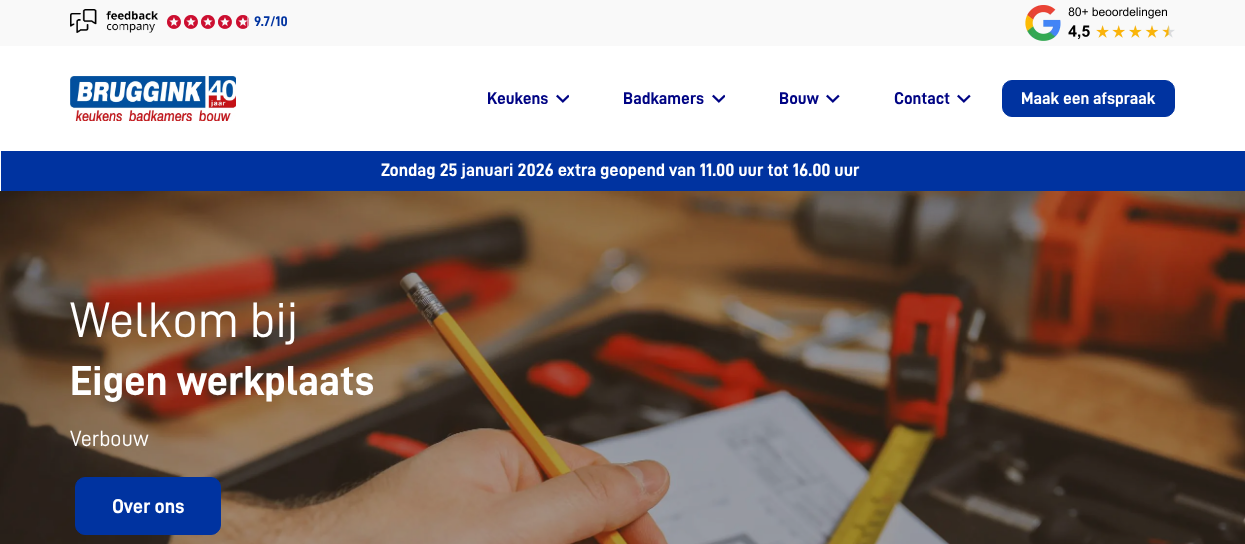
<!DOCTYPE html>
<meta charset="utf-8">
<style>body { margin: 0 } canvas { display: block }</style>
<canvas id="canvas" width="1245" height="544"></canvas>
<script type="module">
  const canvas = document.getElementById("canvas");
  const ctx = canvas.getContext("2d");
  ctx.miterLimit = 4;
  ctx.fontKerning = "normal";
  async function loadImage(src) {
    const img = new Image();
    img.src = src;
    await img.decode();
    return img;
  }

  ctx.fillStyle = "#ffffff";
  ctx.fillRect(0, 0, 1245, 544);
  ctx.fillStyle = "#f9f9f9";
  ctx.fillRect(0, 0, 1245, 46);
  ctx.drawImage(await loadImage("img1.png"), 70, 9, 88, 24);
  ctx.drawImage(await loadImage("img2.png"), 167, 15, 14, 14);
  ctx.drawImage(await loadImage("img2.png"), 184, 15, 14, 14);
  ctx.drawImage(await loadImage("img2.png"), 201, 15, 14, 14);
  ctx.drawImage(await loadImage("img2.png"), 218, 15, 14, 14);
  ctx.drawImage(await loadImage("img3.png"), 236, 15, 13, 14);
  ctx.drawImage(await loadImage("img4.png"), 167, 15, 14, 14);
  ctx.drawImage(await loadImage("img4.png"), 184, 15, 14, 14);
  ctx.drawImage(await loadImage("img4.png"), 201, 15, 14, 14);
  ctx.drawImage(await loadImage("img4.png"), 218, 15, 14, 14);
  ctx.drawImage(await loadImage("img5.png"), 236, 15, 11, 14);
  ctx.font = "bold 14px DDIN";
  ctx.fillStyle = "#0033a0";
  ctx.fillText("9.7/10", 254, 26);
  ctx.drawImage(await loadImage("img6.png"), 1025, 5, 150, 36);
  ctx.drawImage(await loadImage("img7.png"), 70, 76, 166, 45);
  ctx.font = "bold 17px DDIN";
  ctx.fillStyle = "#000484";
  ctx.fillText("Keukens", 487, 104);
  ctx.drawImage(await loadImage("img8.png"), 556, 94, 13, 9);
  ctx.fillText("Badkamers", 623, 104);
  ctx.drawImage(await loadImage("img8.png"), 712, 94, 13, 9);
  ctx.fillText("Bouw", 779, 104);
  ctx.drawImage(await loadImage("img9.png"), 826, 94, 14, 9);
  ctx.fillText("Contact", 894, 104);
  ctx.drawImage(await loadImage("img9.png"), 957, 94, 14, 9);
  ctx.fillStyle = "#0033a0";
  ctx.beginPath();
  ctx.roundRect(1002.5, 80.5, 172, 36, 9.5);
  ctx.fill();
  ctx.strokeStyle = "#0033a0";
  ctx.stroke();
  ctx.fillStyle = "#ffffff";
  ctx.fillText("Maak een afspraak", 1021, 104);
  ctx.fillStyle = "#0033a0";
  ctx.fillRect(1, 151, 1244, 40);
  ctx.font = "bold 18px DDIN";
  ctx.fillStyle = "#ffffff";
  ctx.fillText("Zondag 25 januari 2026 extra geopend van 11.00 uur tot 16.00 uur", 381, 176);
  ctx.drawImage(await loadImage("img10.png"), 0, 191, 1245, 353);
  ctx.font = "50px DDIN";
  ctx.fillText("Welkom bij", 70, 337);
  ctx.font = "bold 42px DDIN";
  ctx.fillText("Eigen werkplaats", 70, 395);
  ctx.font = "22px DDIN";
  ctx.fillText("Verbouw", 70, 446);
  ctx.fillStyle = "#0033a0";
  ctx.beginPath();
  ctx.roundRect(75.5, 477.5, 145, 57, 9.5);
  ctx.fill();
  ctx.stroke();
  ctx.font = "bold 20px DDIN";
  ctx.fillStyle = "#ffffff";
  ctx.fillText("Over ons", 112, 513);
</script>
